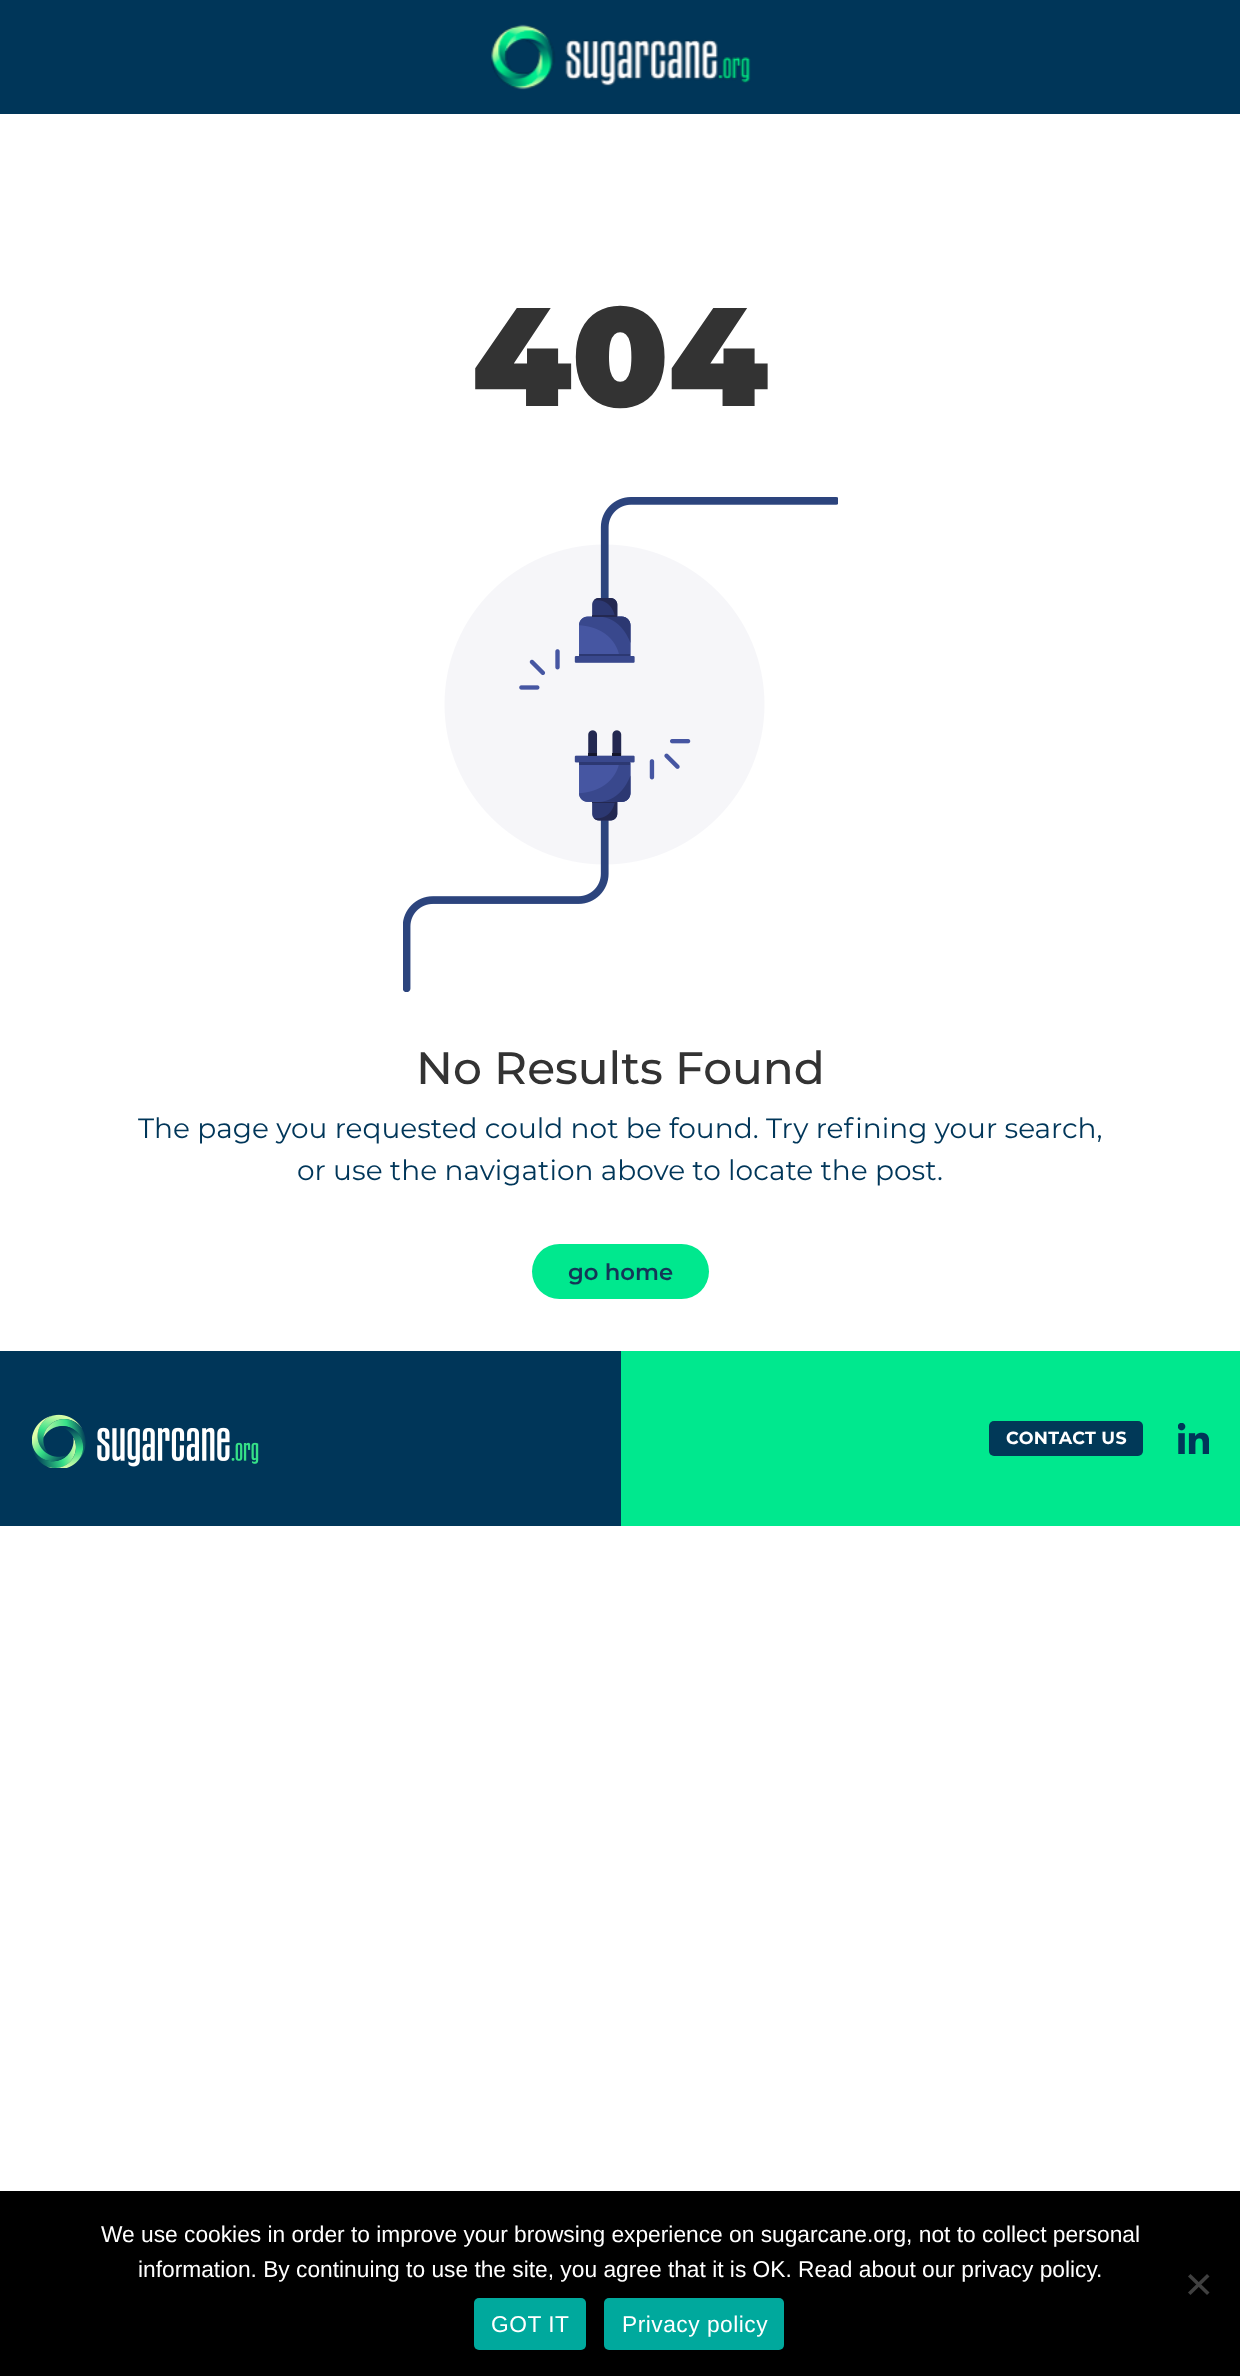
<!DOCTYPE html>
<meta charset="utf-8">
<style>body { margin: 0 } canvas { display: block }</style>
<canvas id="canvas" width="1240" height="2376"></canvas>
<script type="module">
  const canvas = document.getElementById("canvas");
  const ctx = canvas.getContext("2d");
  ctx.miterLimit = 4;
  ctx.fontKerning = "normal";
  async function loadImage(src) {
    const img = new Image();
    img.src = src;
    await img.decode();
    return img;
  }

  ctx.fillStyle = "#ffffff";
  ctx.fillRect(0, 0, 1240, 2376);
  ctx.fillStyle = "#003659";
  ctx.fillRect(0, 0, 1240, 114);
  ctx.drawImage(await loadImage("img1.png"), 491, 24, 260, 66);
  ctx.font = "900 140px Montserrat";
  ctx.fillStyle = "#333333";
  ctx.fillText("404", 472, 406);
  ctx.drawImage(await loadImage("img2.png"), 403, 497, 435, 495);
  ctx.font = "500 45.5px Montserrat";
  ctx.fillText("No Results Found", 416, 1084);
  ctx.font = "28px Montserrat";
  ctx.fillStyle = "#003659";
  ctx.fillText("The page you requested could not be found. Try refining your search,", 138, 1138);
  ctx.fillText("or use the navigation above to locate the post.", 297, 1180);
  ctx.fillStyle = "#00e88e";
  ctx.beginPath();
  ctx.roundRect(532, 1244, 177, 55, 27.5);
  ctx.fill();
  ctx.font = "600 22.75px Montserrat";
  ctx.fillStyle = "#143657";
  ctx.fillText("go home", 568, 1280);
  ctx.fillStyle = "#003659";
  ctx.fillRect(0, 1351, 621, 175);
  ctx.fillStyle = "#00e88e";
  ctx.fillRect(621, 1351, 619, 175);
  ctx.drawImage(await loadImage("img3.png"), 32, 1414, 227, 54);
  ctx.fillStyle = "#013958";
  ctx.beginPath();
  ctx.roundRect(989, 1421, 154, 35, 5);
  ctx.fill();
  ctx.letterSpacing = "0.25px";
  ctx.font = "bold 17.5px Montserrat";
  ctx.fillStyle = "#ffffff";
  ctx.fillText("CONTACT US", 1006, 1444);
  ctx.drawImage(await loadImage("img4.png"), 1178, 1423, 31, 31);
  ctx.fillStyle = "#000000";
  ctx.fillRect(0, 2191, 1240, 185);
  ctx.letterSpacing = "0px";
  ctx.font = "22.75px Liberation Sans";
  ctx.fillStyle = "#ffffff";
  ctx.fillText("We use cookies in order to improve your browsing experience on sugarcane.org, not to collect personal", 101, 2242);
  ctx.fillText("information. By continuing to use the site, you agree that it is OK. Read about our privacy policy.", 138, 2277);
  ctx.fillStyle = "#404040";
  ctx.beginPath();
  ctx.moveTo(1207, 2274);
  ctx.lineTo(1209.5, 2276.5);
  ctx.lineTo(1190.5, 2295);
  ctx.lineTo(1188, 2292.5);
  ctx.closePath();
  ctx.fill();
  ctx.beginPath();
  ctx.moveTo(1188, 2276.5);
  ctx.lineTo(1190.5, 2274);
  ctx.lineTo(1209.5, 2292.5);
  ctx.lineTo(1207, 2295);
  ctx.closePath();
  ctx.fill();
  ctx.fillStyle = "#00a99d";
  ctx.beginPath();
  ctx.roundRect(474, 2298, 112, 52, 5);
  ctx.fill();
  ctx.letterSpacing = "0.5px";
  ctx.fillStyle = "#ffffff";
  ctx.fillText("GOT IT", 491, 2332);
  ctx.fillStyle = "#00a99d";
  ctx.beginPath();
  ctx.roundRect(604, 2298, 180, 52, 5);
  ctx.fill();
  ctx.fillStyle = "#ffffff";
  ctx.fillText("Privacy policy", 622, 2332);
</script>
